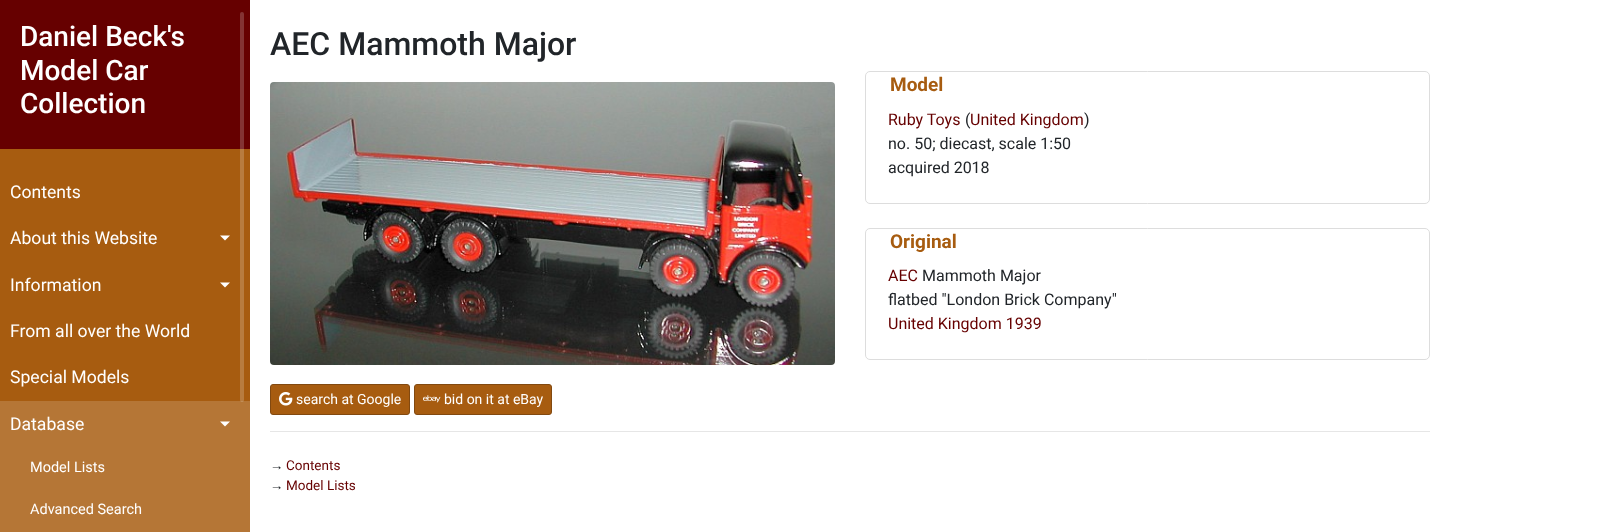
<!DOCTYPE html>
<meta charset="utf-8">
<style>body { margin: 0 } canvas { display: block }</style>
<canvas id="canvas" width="1603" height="532"></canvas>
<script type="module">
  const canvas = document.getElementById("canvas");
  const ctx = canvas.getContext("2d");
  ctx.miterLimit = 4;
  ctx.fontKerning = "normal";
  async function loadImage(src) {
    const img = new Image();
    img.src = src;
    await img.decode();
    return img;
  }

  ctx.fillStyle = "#ffffff";
  ctx.fillRect(0, 0, 1603, 532);
  ctx.fillStyle = "#a75c10";
  ctx.fillRect(0, 149, 250, 252);
  ctx.fillStyle = "#660000";
  ctx.fillRect(0, 0, 250, 149);
  ctx.font = "500 28px Roboto";
  ctx.fillStyle = "#ffffff";
  ctx.fillText("Daniel Beck's", 20, 46);
  ctx.fillText("Model Car", 20, 80);
  ctx.fillText("Collection", 20, 113);
  ctx.font = "17.6px Roboto";
  ctx.fillText("Contents", 10, 198);
  ctx.fillText("About this Website", 10, 244);
  ctx.beginPath();
  ctx.moveTo(220, 235.5);
  ctx.lineTo(230, 235.5);
  ctx.lineTo(225, 240.5);
  ctx.closePath();
  ctx.fill();
  ctx.fillText("Information", 10, 291);
  ctx.beginPath();
  ctx.moveTo(220, 282.5);
  ctx.lineTo(230, 282.5);
  ctx.lineTo(225, 287.5);
  ctx.closePath();
  ctx.fill();
  ctx.fillText("From all over the World", 10, 337);
  ctx.fillText("Special Models", 10, 383);
  ctx.fillStyle = "#b57636";
  ctx.fillRect(0, 401, 250, 131);
  ctx.fillStyle = "#ffffff";
  ctx.fillText("Database", 10, 430);
  ctx.beginPath();
  ctx.moveTo(220, 421.5);
  ctx.lineTo(230, 421.5);
  ctx.lineTo(225, 426.5);
  ctx.closePath();
  ctx.fill();
  ctx.font = "14.5px Roboto";
  ctx.fillText("Model Lists", 30, 472);
  ctx.fillText("Advanced Search", 30, 514);
  ctx.fillStyle = "rgba(255, 255, 255, 0.2)";
  ctx.beginPath();
  ctx.roundRect(240, 12, 4, 390, 2);
  ctx.fill();
  ctx.font = "500 32px Roboto";
  ctx.fillStyle = "#212529";
  ctx.fillText("AEC Mammoth Major", 270, 55);
  ctx.drawImage(await loadImage("img1.png"), 270, 82, 565, 283);
  ctx.beginPath();
  ctx.roundRect(865.5, 71.5, 564, 132, 4.5);
  ctx.strokeStyle = "#dddddd";
  ctx.stroke();
  ctx.font = "bold 19px Roboto";
  ctx.fillStyle = "#a75c10";
  ctx.fillText("Model", 890, 91);
  ctx.font = "16px Roboto";
  ctx.fillStyle = "#660000";
  ctx.fillText("Ruby Toys", 888, 125);
  ctx.fillStyle = "#212529";
  ctx.fillText("(", 965, 125);
  ctx.fillStyle = "#660000";
  ctx.fillText("United Kingdom", 970, 125);
  ctx.fillStyle = "#212529";
  ctx.fillText(")", 1084, 125);
  ctx.fillText("no. 50; diecast, scale 1:50", 888, 149);
  ctx.fillText("acquired 2018", 888, 173);
  ctx.beginPath();
  ctx.roundRect(865.5, 228.5, 564, 131, 4.5);
  ctx.stroke();
  ctx.font = "bold 19px Roboto";
  ctx.fillStyle = "#a75c10";
  ctx.fillText("Original", 890, 248);
  ctx.font = "16px Roboto";
  ctx.fillStyle = "#660000";
  ctx.fillText("AEC", 888, 281);
  ctx.fillStyle = "#212529";
  ctx.fillText("Mammoth Major", 922, 281);
  ctx.fillText("flatbed \"London Brick Company\"", 888, 305);
  ctx.fillStyle = "#660000";
  ctx.fillText("United Kingdom 1939", 888, 329);
  ctx.fillStyle = "#a75c10";
  ctx.beginPath();
  ctx.roundRect(270.5, 384.5, 139, 30, 2.5);
  ctx.fill();
  ctx.strokeStyle = "#824910";
  ctx.stroke();
  ctx.drawImage(await loadImage("img2.png"), 279, 392, 14, 14);
  ctx.font = "14px Roboto";
  ctx.fillStyle = "#ffffff";
  ctx.fillText("search at Google", 296, 404);
  ctx.fillStyle = "#a75c10";
  ctx.beginPath();
  ctx.roundRect(414.5, 384.5, 137, 30, 2.5);
  ctx.fill();
  ctx.stroke();
  ctx.drawImage(await loadImage("img3.png"), 423, 395, 18, 8);
  ctx.fillStyle = "#ffffff";
  ctx.fillText("bid on it at eBay", 444, 404);
  ctx.fillStyle = "#e6e6e6";
  ctx.fillRect(270, 431, 1160, 1);
  ctx.font = "13.5px Liberation Sans";
  ctx.fillStyle = "#212529";
  ctx.fillText("→", 270, 470);
  ctx.font = "13.5px Roboto";
  ctx.fillStyle = "#660000";
  ctx.fillText("Contents", 286, 470);
  ctx.font = "13.5px Liberation Sans";
  ctx.fillStyle = "#212529";
  ctx.fillText("→", 270, 490);
  ctx.font = "13.5px Roboto";
  ctx.fillStyle = "#660000";
  ctx.fillText("Model Lists", 286, 490);
</script>
